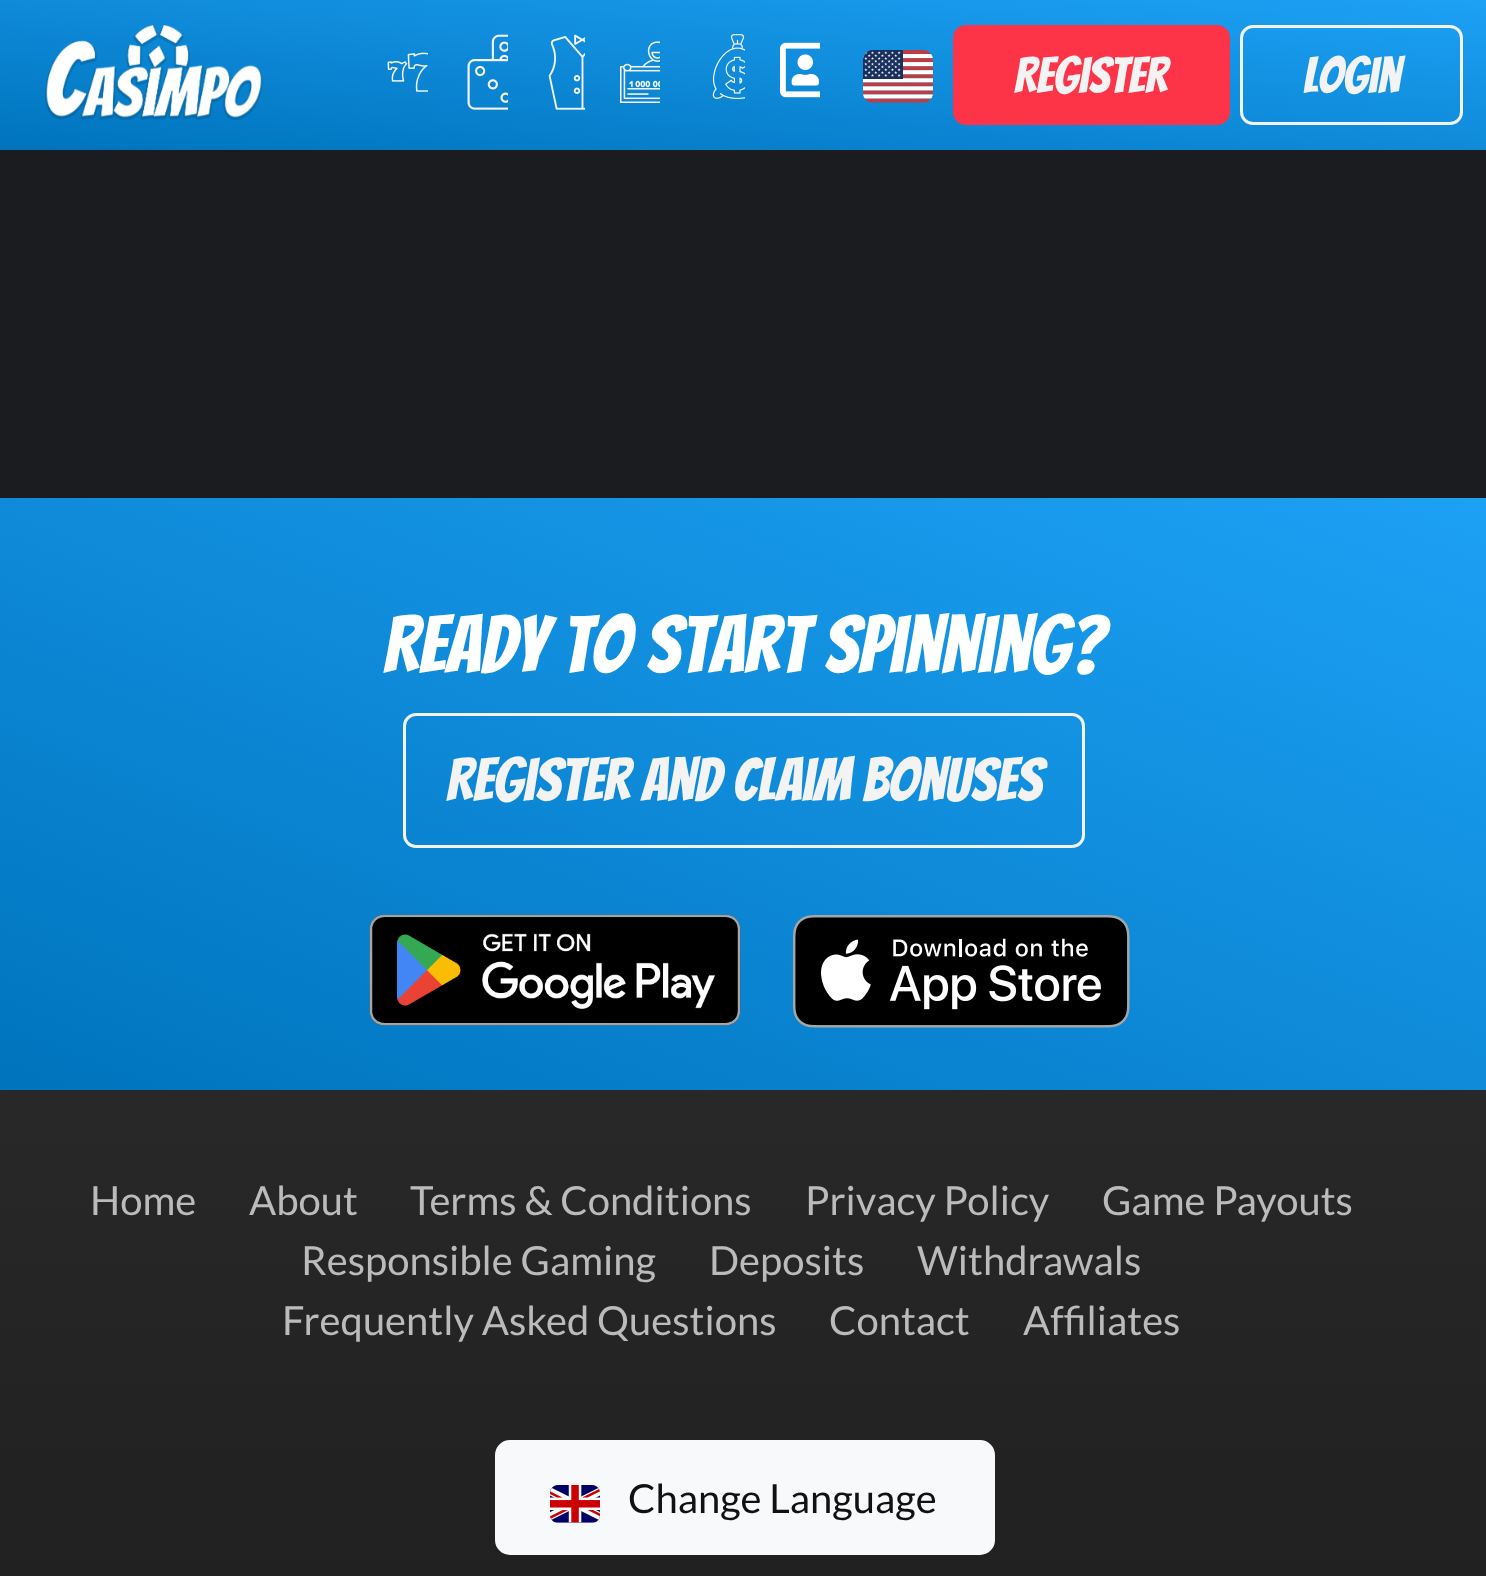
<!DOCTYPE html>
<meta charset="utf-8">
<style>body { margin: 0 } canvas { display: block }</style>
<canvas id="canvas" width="1486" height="1576"></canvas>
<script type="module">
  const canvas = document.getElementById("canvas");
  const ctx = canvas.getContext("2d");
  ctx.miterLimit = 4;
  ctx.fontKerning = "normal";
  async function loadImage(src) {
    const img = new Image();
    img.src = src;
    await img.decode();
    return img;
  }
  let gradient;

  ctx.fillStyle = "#1a1c1f";
  ctx.fillRect(0, 0, 1486, 1576);
  gradient = ctx.createLinearGradient(729, 223, 759, -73);
  gradient.addColorStop(0, "#0074bd");
  gradient.addColorStop(1, "#1da1f5");
  ctx.fillStyle = gradient;
  ctx.fillRect(0, 0, 1486, 150);
  ctx.drawImage(await loadImage("img1.png"), 45, 25, 218, 95);
  ctx.drawImage(await loadImage("img2.png"), 387, 52, 41, 40);
  ctx.drawImage(await loadImage("img3.png"), 467, 34, 41, 76);
  ctx.drawImage(await loadImage("img4.png"), 548, 34, 37, 76);
  ctx.drawImage(await loadImage("img5.png"), 620, 41, 40, 62);
  ctx.drawImage(await loadImage("img6.png"), 712, 34, 33, 66);
  ctx.drawImage(await loadImage("img7.png"), 780, 42, 40, 56);
  ctx.drawImage(await loadImage("img8.png"), 863, 50, 70, 53);
  ctx.fillStyle = "#fd3347";
  ctx.beginPath();
  ctx.roundRect(953, 25, 277, 100, 13);
  ctx.fill();
  ctx.font = "50px Bangers";
  ctx.fillStyle = "#f3f3f3";
  ctx.fillText("Register", 1014, 93);
  ctx.beginPath();
  ctx.roundRect(1241.5, 26.5, 220, 97, 11.5);
  ctx.strokeStyle = "#f3f3f3";
  ctx.lineWidth = 3;
  ctx.stroke();
  ctx.fillText("Login", 1303, 93);
  gradient = ctx.createLinearGradient(539, 1308, 949, 282);
  gradient.addColorStop(0, "#0074bd");
  gradient.addColorStop(1, "#1da1f5");
  ctx.fillStyle = gradient;
  ctx.fillRect(0, 498, 1486, 592);
  ctx.font = "80px Bangers";
  ctx.fillStyle = "#ffffff";
  ctx.fillText("Ready to Start Spinning?", 383, 673);
  ctx.beginPath();
  ctx.roundRect(404.5, 714.5, 679, 132, 11.5);
  ctx.stroke();
  ctx.font = "60px Bangers";
  ctx.fillStyle = "#f3f3f3";
  ctx.fillText("Register and Claim Bonuses", 446, 801);
  ctx.drawImage(await loadImage("img9.png"), 369, 914, 372, 112);
  ctx.drawImage(await loadImage("img10.png"), 793, 915, 337, 113);
  gradient = ctx.createLinearGradient(744, 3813, 744, 1090);
  gradient.addColorStop(0, "#000000");
  gradient.addColorStop(1, "#282828");
  ctx.fillStyle = gradient;
  ctx.fillRect(0, 1090, 1486, 486);
  ctx.font = "40px Lato";
  ctx.fillStyle = "#bbbbbb";
  ctx.fillText("Home", 90, 1215);
  ctx.fillText("About", 249, 1215);
  ctx.fillText("Terms & Conditions", 410, 1215);
  ctx.fillText("Privacy Policy", 805, 1215);
  ctx.fillText("Game Payouts", 1102, 1215);
  ctx.fillText("Responsible Gaming", 301, 1275);
  ctx.fillText("Deposits", 709, 1275);
  ctx.fillText("Withdrawals", 917, 1275);
  ctx.fillText("Frequently Asked Questions", 282, 1335);
  ctx.fillText("Contact", 829, 1335);
  ctx.fillText("Affiliates", 1023, 1335);
  ctx.fillStyle = "#f8f9fa";
  ctx.beginPath();
  ctx.roundRect(496.5, 1441.5, 497, 112, 13.5);
  ctx.fill();
  ctx.strokeStyle = "#f8f9fa";
  ctx.stroke();
  ctx.drawImage(await loadImage("img11.png"), 550, 1485, 50, 38);
  ctx.fillStyle = "#111111";
  ctx.fillText("Change Language", 628, 1513);
</script>
